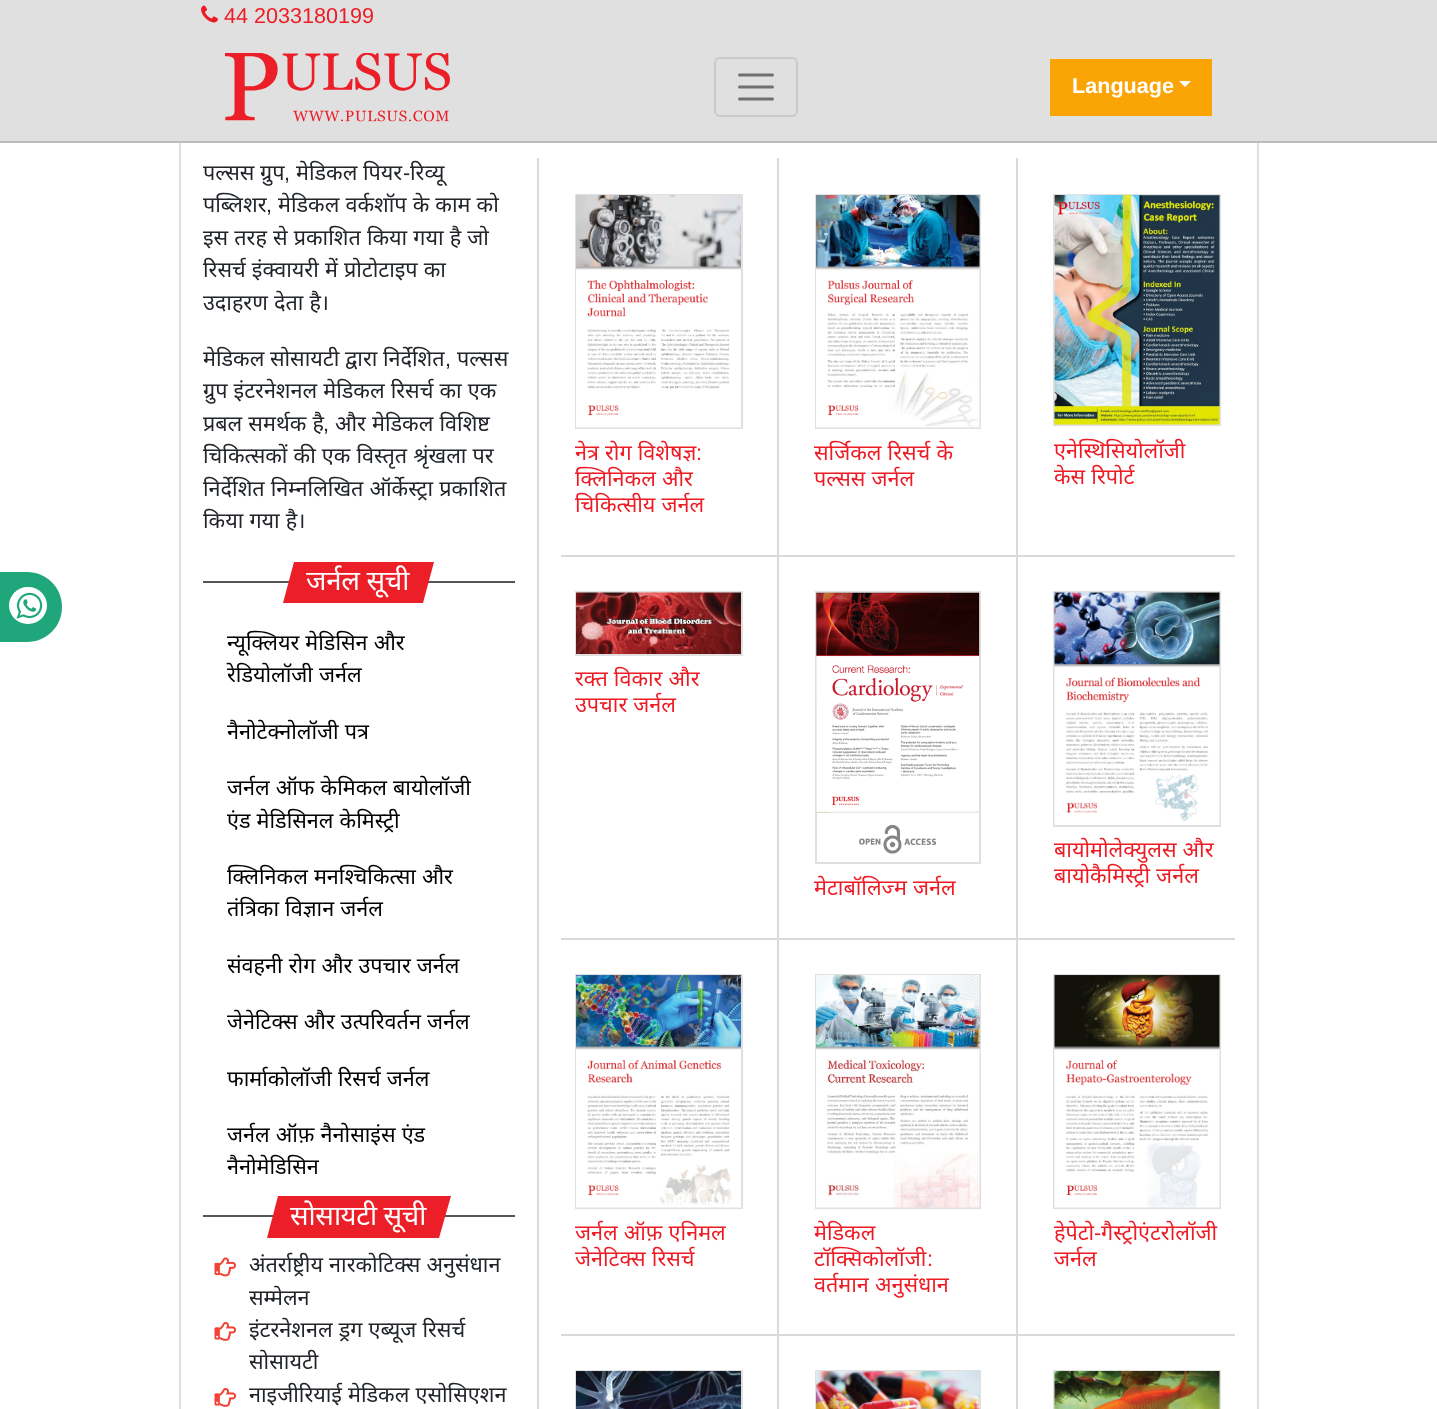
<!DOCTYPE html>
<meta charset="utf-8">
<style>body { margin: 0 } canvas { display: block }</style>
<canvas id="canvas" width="1437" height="1409"></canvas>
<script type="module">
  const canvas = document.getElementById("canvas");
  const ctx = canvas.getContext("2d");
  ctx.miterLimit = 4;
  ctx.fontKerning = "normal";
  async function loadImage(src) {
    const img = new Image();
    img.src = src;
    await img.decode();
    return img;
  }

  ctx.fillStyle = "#ffffff";
  ctx.fillRect(0, 0, 1437, 1409);
  ctx.fillStyle = "#e0e0e0";
  ctx.fillRect(0, 0, 1437, 141);
  ctx.fillStyle = "#bbbbbb";
  ctx.fillRect(0, 141, 1437, 2);
  ctx.drawImage(await loadImage("img1.png"), 201, 5, 17, 18);
  ctx.font = "21.6px Liberation Sans";
  ctx.fillStyle = "#ed1c24";
  ctx.fillText("44 2033180199", 224, 23);
  ctx.drawImage(await loadImage("img2.png"), 225, 53, 225, 69);
  ctx.beginPath();
  ctx.roundRect(715, 58, 82, 58, 5);
  ctx.strokeStyle = "#cacaca";
  ctx.lineWidth = 2;
  ctx.stroke();
  ctx.beginPath();
  ctx.moveTo(739.5, 75);
  ctx.lineTo(772.5, 75);
  ctx.moveTo(739.5, 87);
  ctx.lineTo(772.5, 87);
  ctx.moveTo(739.5, 99);
  ctx.lineTo(772.5, 99);
  ctx.strokeStyle = "#707070";
  ctx.lineWidth = 3;
  ctx.lineCap = "round";
  ctx.stroke();
  ctx.fillStyle = "#fba405";
  ctx.fillRect(1050, 59, 162, 57);
  ctx.font = "bold 21.6px Liberation Sans";
  ctx.fillStyle = "#ffffff";
  ctx.fillText("Language", 1072, 93);
  ctx.beginPath();
  ctx.moveTo(1179, 81);
  ctx.lineTo(1191, 81);
  ctx.lineTo(1185, 87);
  ctx.closePath();
  ctx.fill();
  ctx.fillStyle = "#1fa67a";
  ctx.beginPath();
  ctx.moveTo(-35, 572);
  ctx.lineTo(27, 572);
  ctx.bezierCurveTo(46.5, 572, 62, 587.5, 62, 607);
  ctx.bezierCurveTo(62, 626.5, 46.5, 642, 27, 642);
  ctx.lineTo(-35, 642);
  ctx.closePath();
  ctx.fill();
  ctx.fillStyle = "#ffffff";
  ctx.beginPath();
  ctx.roundRect(9, 587, 38, 37, 18.5);
  ctx.fill();
  ctx.drawImage(await loadImage("img3.png"), 16, 592, 27, 27);
  ctx.fillStyle = "#e0e0e0";
  ctx.fillRect(1257, 143, 2, 1266);
  ctx.fillRect(179, 143, 2, 1266);
  ctx.fillStyle = "#dadada";
  ctx.fillRect(537, 158, 2, 1251);
  ctx.font = "21.6px Noto Sans";
  ctx.fillStyle = "#212529";
  ctx.fillText("पल्सस ग्रुप", 203, 180);
  ctx.font = "21.6px Liberation Sans";
  ctx.fillText(",", 284, 180);
  ctx.font = "21.6px Noto Sans";
  ctx.fillText("मेडिकल पियर", 296, 180);
  ctx.font = "21.6px Liberation Sans";
  ctx.fillText("-", 403, 180);
  ctx.font = "21.6px Noto Sans";
  ctx.fillText("रिव्यू", 410, 180);
  ctx.fillText("पब्लिशर", 203, 212);
  ctx.font = "21.6px Liberation Sans";
  ctx.fillText(",", 266, 212);
  ctx.wordSpacing = "0.5px";
  ctx.font = "21.6px Noto Sans";
  ctx.fillText("मेडिकल वर्कशॉप के काम को", 278, 212);
  ctx.fillText("इस तरह से प्रकाशित किया गया है जो", 203, 245);
  ctx.fillText("रिसर्च इंक्वायरी में प्रोटोटाइप का", 203, 277);
  ctx.fillText("उदाहरण देता है।", 203, 310);
  ctx.wordSpacing = "0px";
  ctx.fillText("मेडिकल सोसायटी द्वारा निर्देशित", 203, 366);
  ctx.font = "21.6px Liberation Sans";
  ctx.fillText(",", 445, 366);
  ctx.font = "21.6px Noto Sans";
  ctx.fillText("पल्सस", 457, 366);
  ctx.wordSpacing = "0.5px";
  ctx.fillText("ग्रुप इंटरनेशनल मेडिकल रिसर्च का एक", 203, 398);
  ctx.fillText("प्रबल समर्थक है", 203, 431);
  ctx.wordSpacing = "0px";
  ctx.font = "21.6px Liberation Sans";
  ctx.fillText(",", 323, 431);
  ctx.wordSpacing = "0.5px";
  ctx.font = "21.6px Noto Sans";
  ctx.fillText("और मेडिकल विशिष्ट", 335, 431);
  ctx.fillText("चिकित्सकों की एक विस्तृत श्रृंखला पर", 203, 463);
  ctx.fillText("निर्देशित निम्नलिखित ऑर्केस्ट्रा प्रकाशित", 203, 496);
  ctx.fillText("किया गया है।", 203, 528);
  ctx.fillStyle = "#555555";
  ctx.fillRect(203, 581, 312, 2);
  ctx.fillStyle = "#ec1e27";
  ctx.beginPath();
  ctx.moveTo(294, 562);
  ctx.lineTo(434, 562);
  ctx.lineTo(423, 603);
  ctx.lineTo(283, 603);
  ctx.closePath();
  ctx.fill();
  ctx.letterSpacing = "-0.25px";
  ctx.wordSpacing = "0px";
  ctx.font = "27.5px Noto Sans";
  ctx.fillStyle = "#ffffff";
  ctx.fillText("जर्नल सूची", 306, 590);
  ctx.letterSpacing = "0px";
  ctx.wordSpacing = "0.5px";
  ctx.font = "21.6px Noto Sans";
  ctx.fillStyle = "#000000";
  ctx.fillText("न्यूक्लियर मेडिसिन और", 227, 650);
  ctx.fillText("रेडियोलॉजी जर्नल", 227, 682);
  ctx.fillText("नैनोटेक्नोलॉजी पत्र", 227, 739);
  ctx.fillText("जर्नल ऑफ केमिकल बायोलॉजी", 227, 795);
  ctx.fillText("एंड मेडिसिनल केमिस्ट्री", 227, 828);
  ctx.fillText("क्लिनिकल मनश्चिकित्सा और", 227, 884);
  ctx.fillText("तंत्रिका विज्ञान जर्नल", 227, 916);
  ctx.fillText("संवहनी रोग और उपचार जर्नल", 227, 973);
  ctx.fillText("जेनेटिक्स और उत्परिवर्तन जर्नल", 227, 1029);
  ctx.fillText("फार्माकोलॉजी रिसर्च जर्नल", 227, 1086);
  ctx.fillText("जर्नल ऑफ़ नैनोसाइंस एंड", 227, 1142);
  ctx.wordSpacing = "0px";
  ctx.fillText("नैनोमेडिसिन", 227, 1174);
  ctx.fillStyle = "#555555";
  ctx.fillRect(203, 1215, 312, 2);
  ctx.fillStyle = "#ec1e27";
  ctx.beginPath();
  ctx.moveTo(278, 1196);
  ctx.lineTo(451, 1196);
  ctx.lineTo(439, 1238);
  ctx.lineTo(267, 1238);
  ctx.closePath();
  ctx.fill();
  ctx.letterSpacing = "-0.4px";
  ctx.font = "27.5px Noto Sans";
  ctx.fillStyle = "#ffffff";
  ctx.fillText("सोसायटी सूची", 290, 1225);
  ctx.drawImage(await loadImage("img4.png"), 214, 1257, 23, 20);
  ctx.letterSpacing = "0px";
  ctx.wordSpacing = "0.5px";
  ctx.font = "21.6px Noto Sans";
  ctx.fillStyle = "#212529";
  ctx.fillText("अंतर्राष्ट्रीय नारकोटिक्स अनुसंधान", 249, 1272);
  ctx.wordSpacing = "0px";
  ctx.fillText("सम्मेलन", 249, 1305);
  ctx.drawImage(await loadImage("img5.png"), 214, 1322, 23, 19);
  ctx.wordSpacing = "0.5px";
  ctx.fillText("इंटरनेशनल ड्रग एब्यूज रिसर्च", 249, 1337);
  ctx.wordSpacing = "0px";
  ctx.fillText("सोसायटी", 249, 1369);
  ctx.drawImage(await loadImage("img5.png"), 214, 1388, 23, 19);
  ctx.wordSpacing = "0.5px";
  ctx.fillText("नाइजीरियाई मेडिकल एसोसिएशन", 249, 1402);
  ctx.strokeStyle = "#e0e0e0";
  ctx.lineWidth = 2;
  ctx.strokeRect(576, 195, 166, 233);
  ctx.drawImage(await loadImage("img6.png"), 576, 195, 165, 233);
  ctx.fillStyle = "#ed1c24";
  ctx.fillText("नेत्र रोग विशेषज्ञ", 575, 460);
  ctx.wordSpacing = "0px";
  ctx.font = "21.6px Liberation Sans";
  ctx.fillText(":", 696, 460);
  ctx.wordSpacing = "0.5px";
  ctx.font = "21.6px Noto Sans";
  ctx.fillText("क्लिनिकल और", 575, 486);
  ctx.fillText("चिकित्सीय जर्नल", 575, 512);
  ctx.fillStyle = "#dadada";
  ctx.fillRect(561, 555, 674, 2);
  ctx.fillRect(777, 158, 2, 780);
  ctx.strokeRect(816, 195, 164, 233);
  ctx.drawImage(await loadImage("img7.png"), 816, 195, 164, 233);
  ctx.fillStyle = "#ed1c24";
  ctx.fillText("सर्जिकल रिसर्च के", 814, 460);
  ctx.fillText("पल्सस जर्नल", 814, 486);
  ctx.fillStyle = "#dadada";
  ctx.fillRect(1016, 158, 2, 780);
  ctx.strokeRect(1054, 195, 166, 230);
  ctx.drawImage(await loadImage("img8.png"), 1054, 195, 166, 230);
  ctx.wordSpacing = "0px";
  ctx.fillStyle = "#ed1c24";
  ctx.fillText("एनेस्थिसियोलॉजी", 1054, 458);
  ctx.wordSpacing = "0.5px";
  ctx.fillText("केस रिपोर्ट", 1054, 484);
  ctx.strokeRect(576, 592, 166, 63);
  ctx.drawImage(await loadImage("img9.png"), 576, 592, 165, 62);
  ctx.fillText("रक्त विकार और", 575, 686);
  ctx.fillText("उपचार जर्नल", 575, 712);
  ctx.fillStyle = "#dadada";
  ctx.fillRect(561, 938, 674, 2);
  ctx.strokeRect(816, 592, 164, 271);
  ctx.drawImage(await loadImage("img10.png"), 816, 592, 164, 262);
  ctx.fillStyle = "#ed1c24";
  ctx.fillText("मेटाबॉलिज्म जर्नल", 814, 895);
  ctx.strokeRect(1054, 592, 166, 234);
  ctx.drawImage(await loadImage("img11.png"), 1054, 592, 166, 233);
  ctx.fillText("बायोमोलेक्युलस और", 1054, 857);
  ctx.fillText("बायोकैमिस्ट्री जर्नल", 1054, 883);
  ctx.strokeRect(576, 975, 166, 233);
  ctx.drawImage(await loadImage("img12.png"), 576, 975, 165, 233);
  ctx.fillText("जर्नल ऑफ़ एनिमल", 575, 1240);
  ctx.fillText("जेनेटिक्स रिसर्च", 575, 1266);
  ctx.fillStyle = "#dadada";
  ctx.fillRect(561, 1334, 674, 2);
  ctx.fillRect(777, 938, 2, 471);
  ctx.strokeRect(816, 975, 164, 233);
  ctx.drawImage(await loadImage("img13.png"), 816, 975, 164, 233);
  ctx.wordSpacing = "0px";
  ctx.fillStyle = "#ed1c24";
  ctx.fillText("मेडिकल", 814, 1240);
  ctx.fillText("टॉक्सिकोलॉजी", 814, 1266);
  ctx.font = "21.6px Liberation Sans";
  ctx.fillText(":", 927, 1266);
  ctx.wordSpacing = "0.5px";
  ctx.font = "21.6px Noto Sans";
  ctx.fillText("वर्तमान अनुसंधान", 814, 1292);
  ctx.fillStyle = "#dadada";
  ctx.fillRect(1016, 938, 2, 471);
  ctx.strokeRect(1054, 975, 166, 233);
  ctx.drawImage(await loadImage("img14.png"), 1054, 975, 166, 233);
  ctx.wordSpacing = "0px";
  ctx.fillStyle = "#ed1c24";
  ctx.fillText("हेपेटो", 1054, 1240);
  ctx.font = "21.6px Liberation Sans";
  ctx.fillText("-", 1094, 1240);
  ctx.font = "21.6px Noto Sans";
  ctx.fillText("गैस्ट्रोएंटरोलॉजी", 1101, 1240);
  ctx.fillText("जर्नल", 1054, 1266);
  ctx.strokeRect(576, 1371, 166, 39);
  ctx.drawImage(await loadImage("img15.png"), 576, 1371, 165, 38);
  ctx.strokeRect(816, 1371, 164, 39);
  ctx.drawImage(await loadImage("img16.png"), 816, 1371, 164, 38);
  ctx.strokeRect(1054, 1371, 166, 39);
  ctx.drawImage(await loadImage("img17.png"), 1054, 1371, 166, 38);
</script>
